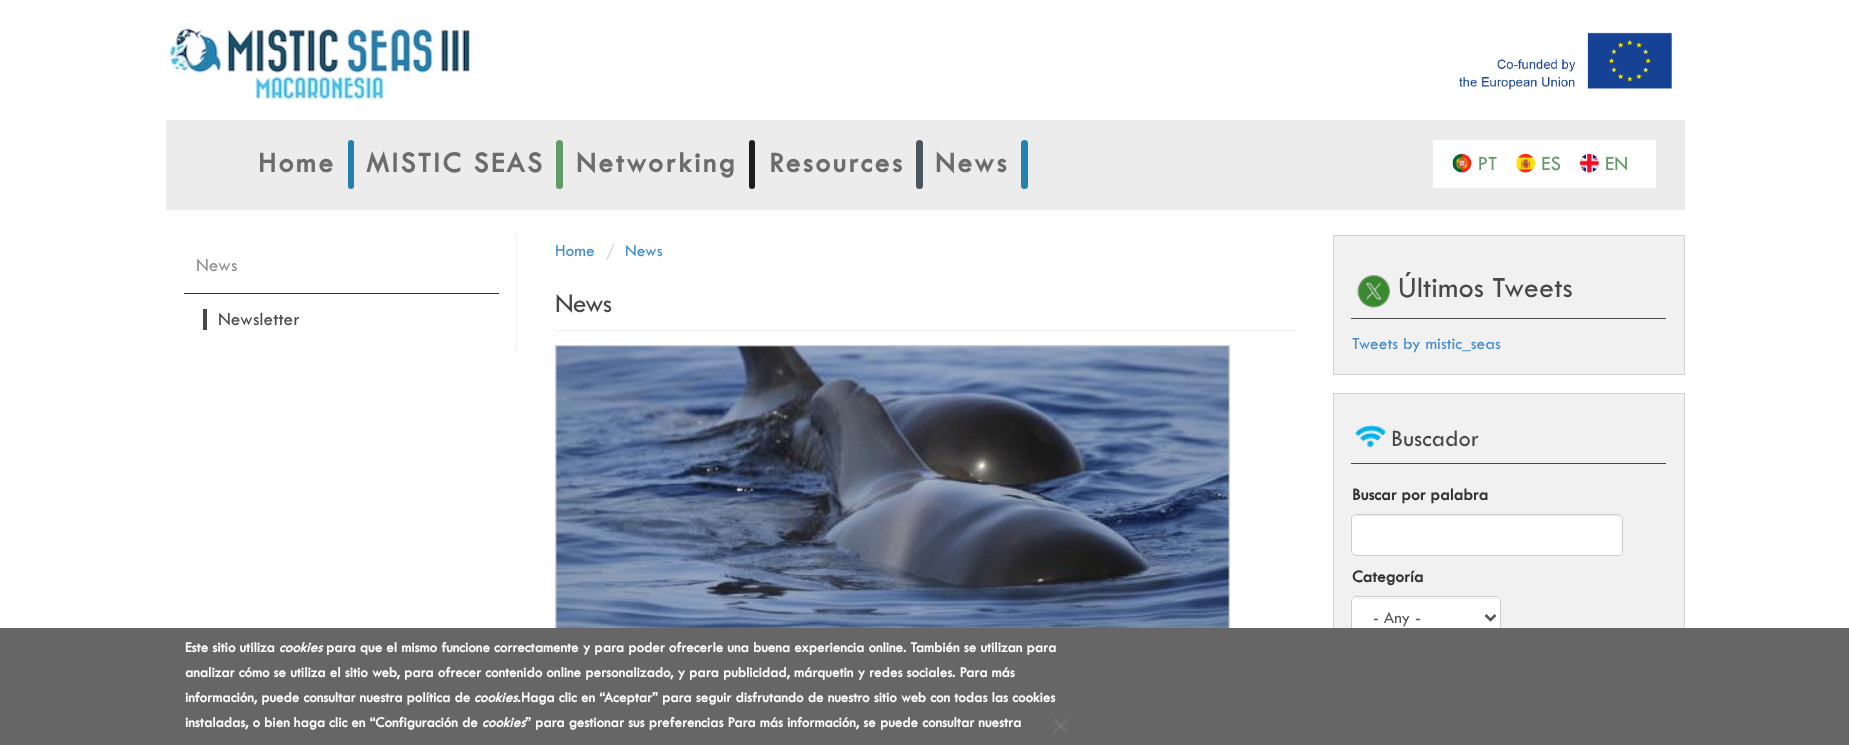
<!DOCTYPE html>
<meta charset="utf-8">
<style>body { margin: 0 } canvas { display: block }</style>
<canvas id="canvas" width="1849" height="745"></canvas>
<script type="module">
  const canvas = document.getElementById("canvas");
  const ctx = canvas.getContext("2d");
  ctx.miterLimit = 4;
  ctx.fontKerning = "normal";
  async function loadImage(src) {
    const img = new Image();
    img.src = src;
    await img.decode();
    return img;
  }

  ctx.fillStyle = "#ffffff";
  ctx.fillRect(0, 0, 1849, 745);
  ctx.drawImage(await loadImage("img1.png"), 166, 26, 307, 75);
  ctx.drawImage(await loadImage("img2.png"), 1459, 32, 213, 58);
  ctx.fillStyle = "#edecec";
  ctx.fillRect(166, 120, 1519, 90);
  ctx.letterSpacing = "2.5px";
  ctx.font = "bold 29.75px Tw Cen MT";
  ctx.fillStyle = "#6c6c6c";
  ctx.fillText("Home", 258, 172);
  ctx.fillStyle = "#2380af";
  ctx.beginPath();
  ctx.roundRect(348, 140, 6, 49, 3);
  ctx.fill();
  ctx.fillStyle = "#6c6c6c";
  ctx.fillText("MISTIC SEAS", 366, 172);
  ctx.fillStyle = "#609a66";
  ctx.beginPath();
  ctx.roundRect(556, 140, 7, 49, 3.5);
  ctx.fill();
  ctx.fillStyle = "#6c6c6c";
  ctx.fillText("Networking", 576, 172);
  ctx.fillStyle = "#1c1c1c";
  ctx.beginPath();
  ctx.roundRect(749, 140, 6, 49, 3);
  ctx.fill();
  ctx.fillStyle = "#6c6c6c";
  ctx.fillText("Resources", 769, 172);
  ctx.fillStyle = "#4c545e";
  ctx.beginPath();
  ctx.roundRect(916, 140, 7, 49, 3.5);
  ctx.fill();
  ctx.fillStyle = "#6c6c6c";
  ctx.fillText("News", 935, 172);
  ctx.fillStyle = "#2380af";
  ctx.beginPath();
  ctx.roundRect(1021, 140, 7, 49, 3.5);
  ctx.fill();
  ctx.fillStyle = "#ffffff";
  ctx.fillRect(1433, 140, 223, 48);
  ctx.drawImage(await loadImage("img3.png"), 1452, 153, 20, 20);
  ctx.drawImage(await loadImage("img4.png"), 1479, 156, 18, 14);
  ctx.drawImage(await loadImage("img5.png"), 1516, 153, 19, 20);
  ctx.drawImage(await loadImage("img6.png"), 1542, 156, 19, 15);
  ctx.drawImage(await loadImage("img7.png"), 1580, 153, 19, 20);
  ctx.drawImage(await loadImage("img8.png"), 1606, 156, 21, 15);
  ctx.fillStyle = "#eeeeee";
  ctx.fillRect(516, 235, 1, 116);
  ctx.fillStyle = "#333333";
  ctx.fillRect(184, 293, 315, 1);
  ctx.letterSpacing = "0px";
  ctx.font = "19.25px Tw Cen MT";
  ctx.fillStyle = "#909090";
  ctx.fillText("News", 196, 271);
  ctx.fillStyle = "#484848";
  ctx.fillText("Newsletter", 218, 325);
  ctx.fillRect(203, 309, 4, 21);
  ctx.font = "17.5px Tw Cen MT";
  ctx.fillStyle = "#428bca";
  ctx.fillText("Home", 555, 256);
  ctx.fillStyle = "#cccccc";
  ctx.fillText("/", 606, 256);
  ctx.fillStyle = "#428bca";
  ctx.fillText("News", 625, 256);
  ctx.fillStyle = "#eeeeee";
  ctx.fillRect(555, 330, 740, 1);
  ctx.letterSpacing = "-1px";
  ctx.font = "28px Tw Cen MT";
  ctx.fillStyle = "#484848";
  ctx.fillText("News", 555, 312);
  ctx.strokeStyle = "#cccccc";
  ctx.strokeRect(555.5, 345.5, 674, 302);
  ctx.drawImage(await loadImage("img9.png"), 556, 346, 673, 282);
  ctx.fillStyle = "#f1f1f1";
  ctx.beginPath();
  ctx.rect(1333.5, 235.5, 351, 139);
  ctx.fill();
  ctx.strokeStyle = "#d1d1d1";
  ctx.stroke();
  ctx.drawImage(await loadImage("img10.png"), 1357, 275, 33, 33);
  ctx.fillStyle = "#484848";
  ctx.fillRect(1351, 318, 315, 1);
  ctx.letterSpacing = "0px";
  ctx.font = "30.5px Tw Cen MT";
  ctx.fillText("Últimos Tweets", 1398, 297);
  ctx.font = "17.5px Tw Cen MT";
  ctx.fillStyle = "#428bca";
  ctx.fillText("Tweets by mistic_seas", 1352, 349);
  ctx.fillStyle = "#f1f1f1";
  ctx.fillRect(1334, 394, 350, 234);
  ctx.strokeRect(1333.5, 393.5, 351, 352);
  ctx.drawImage(await loadImage("img11.png"), 1355, 425, 31, 23);
  ctx.fillStyle = "#484848";
  ctx.fillRect(1351, 463, 315, 1);
  ctx.font = "24.5px Tw Cen MT";
  ctx.fillText("Buscador", 1391, 446);
  ctx.font = "bold 17.5px Tw Cen MT";
  ctx.fillStyle = "#333333";
  ctx.fillText("Buscar por palabra", 1352, 500);
  ctx.fillStyle = "#ffffff";
  ctx.beginPath();
  ctx.roundRect(1351, 514, 272, 42, 5);
  ctx.fill();
  ctx.fillStyle = "#ececec";
  ctx.beginPath();
  ctx.moveTo(1356, 516);
  ctx.lineTo(1618, 516);
  ctx.bezierCurveTo(1620, 516, 1621, 518, 1621, 520);
  ctx.lineTo(1621, 517);
  ctx.bezierCurveTo(1620, 516, 1619, 515, 1617, 515);
  ctx.lineTo(1356, 515);
  ctx.lineTo(1354, 517);
  ctx.closePath();
  ctx.fill();
  ctx.beginPath();
  ctx.roundRect(1351.5, 514.5, 271, 41, 4.5);
  ctx.strokeStyle = "#cccccc";
  ctx.stroke();
  ctx.fillStyle = "#333333";
  ctx.fillText("Categoría", 1352, 582);
  ctx.fillStyle = "#ffffff";
  ctx.beginPath();
  ctx.roundRect(1351, 596, 150, 43, 5);
  ctx.fill();
  ctx.fillStyle = "#ececec";
  ctx.beginPath();
  ctx.moveTo(1356, 599);
  ctx.lineTo(1496, 599);
  ctx.bezierCurveTo(1498, 599, 1500, 600, 1500, 602);
  ctx.bezierCurveTo(1500, 600, 1498, 598, 1496, 598);
  ctx.lineTo(1357, 598);
  ctx.lineTo(1354, 599);
  ctx.closePath();
  ctx.fill();
  ctx.beginPath();
  ctx.roundRect(1351.5, 596.5, 149, 42, 4.5);
  ctx.stroke();
  ctx.beginPath();
  ctx.moveTo(1485.5, 615);
  ctx.lineTo(1490.5, 620);
  ctx.lineTo(1495.5, 615);
  ctx.strokeStyle = "#555555";
  ctx.lineWidth = 2.5;
  ctx.stroke();
  ctx.font = "17.5px Tw Cen MT";
  ctx.fillStyle = "#555555";
  ctx.fillText("- Any -", 1373, 623);
  ctx.fillStyle = "#666666";
  ctx.fillRect(0, 628, 1849, 117);
  ctx.font = "bold 15px Tw Cen MT";
  ctx.fillStyle = "#fcfcfc";
  ctx.fillText("Este sitio utiliza", 185, 652);
  ctx.font = "italic bold 15px Tw Cen MT";
  ctx.fillText("cookies", 279, 652);
  ctx.font = "bold 15px Tw Cen MT";
  ctx.fillText("para que el mismo funcione correctamente y para poder ofrecerle una buena experiencia online. También se utilizan para", 326, 652);
  ctx.fillText("analizar cómo se utiliza el sitio web, para ofrecer contenido online personalizado, y para publicidad, márquetin y redes sociales. Para más", 185, 677);
  ctx.fillText("información, puede consultar nuestra política de", 185, 702);
  ctx.font = "italic bold 15px Tw Cen MT";
  ctx.fillText("cookies.", 474, 702);
  ctx.font = "bold 15px Tw Cen MT";
  ctx.fillText("Haga clic en “Aceptar” para seguir disfrutando de nuestro sitio web con todas las cookies", 521, 702);
  ctx.fillText("instaladas, o bien haga clic en “Configuración de", 185, 727);
  ctx.font = "italic bold 15px Tw Cen MT";
  ctx.fillText("cookies", 482, 727);
  ctx.font = "bold 15px Tw Cen MT";
  ctx.fillText("” para gestionar sus preferencias Para más información, se puede consultar nuestra", 525, 727);
  ctx.drawImage(await loadImage("img12.png"), 1053, 718, 15, 15);
</script>
